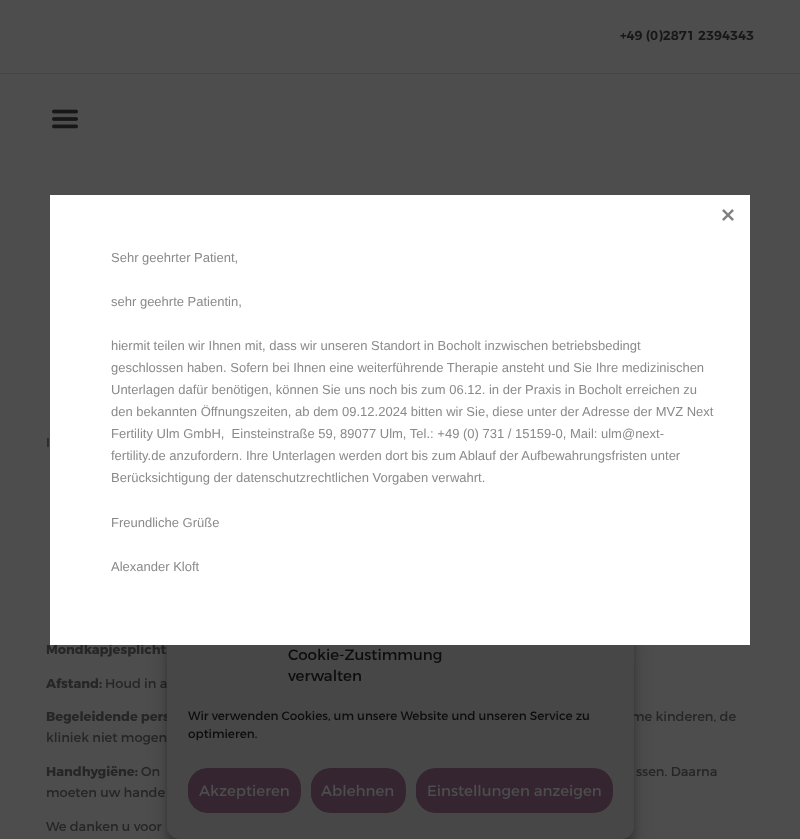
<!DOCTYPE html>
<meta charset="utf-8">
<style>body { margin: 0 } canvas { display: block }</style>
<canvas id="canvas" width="800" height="839"></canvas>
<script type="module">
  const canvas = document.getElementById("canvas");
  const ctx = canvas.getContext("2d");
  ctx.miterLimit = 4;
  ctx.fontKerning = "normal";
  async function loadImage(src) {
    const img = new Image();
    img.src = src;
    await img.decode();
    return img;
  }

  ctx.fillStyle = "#4d4d4d";
  ctx.fillRect(0, 0, 800, 839);
  ctx.fillStyle = "#454545";
  ctx.fillRect(0, 73, 800, 1);
  ctx.font = "600 13px Montserrat";
  ctx.fillStyle = "#171717";
  ctx.fillText("+49 (0)2871 2394343", 620, 40);
  ctx.drawImage(await loadImage("img1.png"), 52, 109, 26, 20);
  ctx.font = "13px Montserrat";
  ctx.fillStyle = "#262626";
  ctx.fillText("I", 46, 447);
  ctx.font = "bold 13px Montserrat";
  ctx.fillText("Mondkapjesplicht:", 46, 654);
  ctx.fillText("Afstand:", 46, 688);
  ctx.font = "13px Montserrat";
  ctx.fillText("Houd in a", 105, 688);
  ctx.font = "bold 13px Montserrat";
  ctx.fillText("Begeleidende pers", 46, 721);
  ctx.font = "13px Montserrat";
  ctx.fillText("me kinderen, de", 631, 721);
  ctx.fillText("kliniek niet mogen", 46, 742);
  ctx.font = "bold 13px Montserrat";
  ctx.fillText("Handhygiëne:", 46, 776);
  ctx.font = "13px Montserrat";
  ctx.fillText("On", 141, 776);
  ctx.fillText("ssen. Daarna", 636, 776);
  ctx.fillText("moeten uw hande", 46, 797);
  ctx.fillText("We danken u voor", 46, 831);
  ctx.fillStyle = "rgba(5, 5, 5, 0.23)";
  ctx.filter = "blur(3px)";
  ctx.beginPath();
  ctx.roundRect(167, 635, 467, 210, 12);
  ctx.fill();
  ctx.filter = "none";
  ctx.fillStyle = "rgba(5, 5, 5, 0.19)";
  ctx.filter = "blur(10px)";
  ctx.beginPath();
  ctx.roundRect(167, 639, 467, 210, 12);
  ctx.fill();
  ctx.filter = "none";
  ctx.fillStyle = "#474747";
  ctx.beginPath();
  ctx.roundRect(167.5, 629.5, 466, 209, 11.5);
  ctx.fill();
  ctx.strokeStyle = "#474747";
  ctx.stroke();
  ctx.fillStyle = "#ffffff";
  ctx.fillRect(50, 195, 700, 450);
  ctx.drawImage(await loadImage("img2.png"), 722, 209, 12, 12);
  ctx.font = "13px Liberation Sans";
  ctx.fillStyle = "#8a8a8a";
  ctx.fillText("Sehr geehrter Patient,", 111, 262);
  ctx.fillText("sehr geehrte Patientin,", 111, 306);
  ctx.fillText("hiermit teilen wir Ihnen mit, dass wir unseren Standort in Bocholt inzwischen betriebsbedingt", 111, 350);
  ctx.fillText("geschlossen haben. Sofern bei Ihnen eine weiterführende Therapie ansteht und Sie Ihre medizinischen", 111, 372);
  ctx.fillText("Unterlagen dafür benötigen, können Sie uns noch bis zum 06.12. in der Praxis in Bocholt erreichen zu", 111, 394);
  ctx.fillText("den bekannten Öffnungszeiten, ab dem 09.12.2024 bitten wir Sie, diese unter der Adresse der MVZ Next", 111, 416);
  ctx.fillText("Fertility Ulm GmbH,  Einsteinstraße 59, 89077 Ulm, Tel.: +49 (0) 731 / 15159-0, Mail: ulm@next-", 111, 438);
  ctx.fillText("fertility.de anzufordern. Ihre Unterlagen werden dort bis zum Ablauf der Aufbewahrungsfristen unter", 111, 460);
  ctx.fillText("Berücksichtigung der datenschutzrechtlichen Vorgaben verwahrt.", 111, 482);
  ctx.fillText("Freundliche Grüße", 111, 527);
  ctx.fillText("Alexander Kloft", 111, 571);
  ctx.font = "15px Montserrat";
  ctx.fillStyle = "#0c0d0e";
  ctx.fillText("Cookie-Zustimmung", 288, 660);
  ctx.fillText("verwalten", 288, 681);
  ctx.font = "12px Montserrat";
  ctx.fillText("Wir verwenden Cookies, um unsere Website und unseren Service zu", 188, 720);
  ctx.fillText("optimieren.", 188, 738);
  ctx.save();
  ctx.beginPath();
  ctx.roundRect(188, 768, 113, 45, 20);
  ctx.clip();
  ctx.fillStyle = "#352530";
  ctx.fillRect(188, 769, 112, 43);
  ctx.restore();
  ctx.beginPath();
  ctx.roundRect(188.5, 768.5, 112, 44, 19.5);
  ctx.strokeStyle = "#35252e";
  ctx.stroke();
  ctx.font = "15px Montserrat";
  ctx.fillStyle = "#4d4d4d";
  ctx.fillText("Akzeptieren", 199, 796);
  ctx.save();
  ctx.beginPath();
  ctx.roundRect(311, 768, 95, 45, 20);
  ctx.clip();
  ctx.fillStyle = "#352530";
  ctx.fillRect(311, 769, 94, 43);
  ctx.restore();
  ctx.beginPath();
  ctx.roundRect(311.5, 768.5, 94, 44, 19.5);
  ctx.stroke();
  ctx.fillText("Ablehnen", 321, 796);
  ctx.save();
  ctx.beginPath();
  ctx.roundRect(416, 768, 197, 45, 20);
  ctx.clip();
  ctx.fillStyle = "#352530";
  ctx.fillRect(416, 769, 196, 43);
  ctx.restore();
  ctx.beginPath();
  ctx.roundRect(416.5, 768.5, 196, 44, 19.5);
  ctx.stroke();
  ctx.fillText("Einstellungen anzeigen", 427, 796);
</script>
